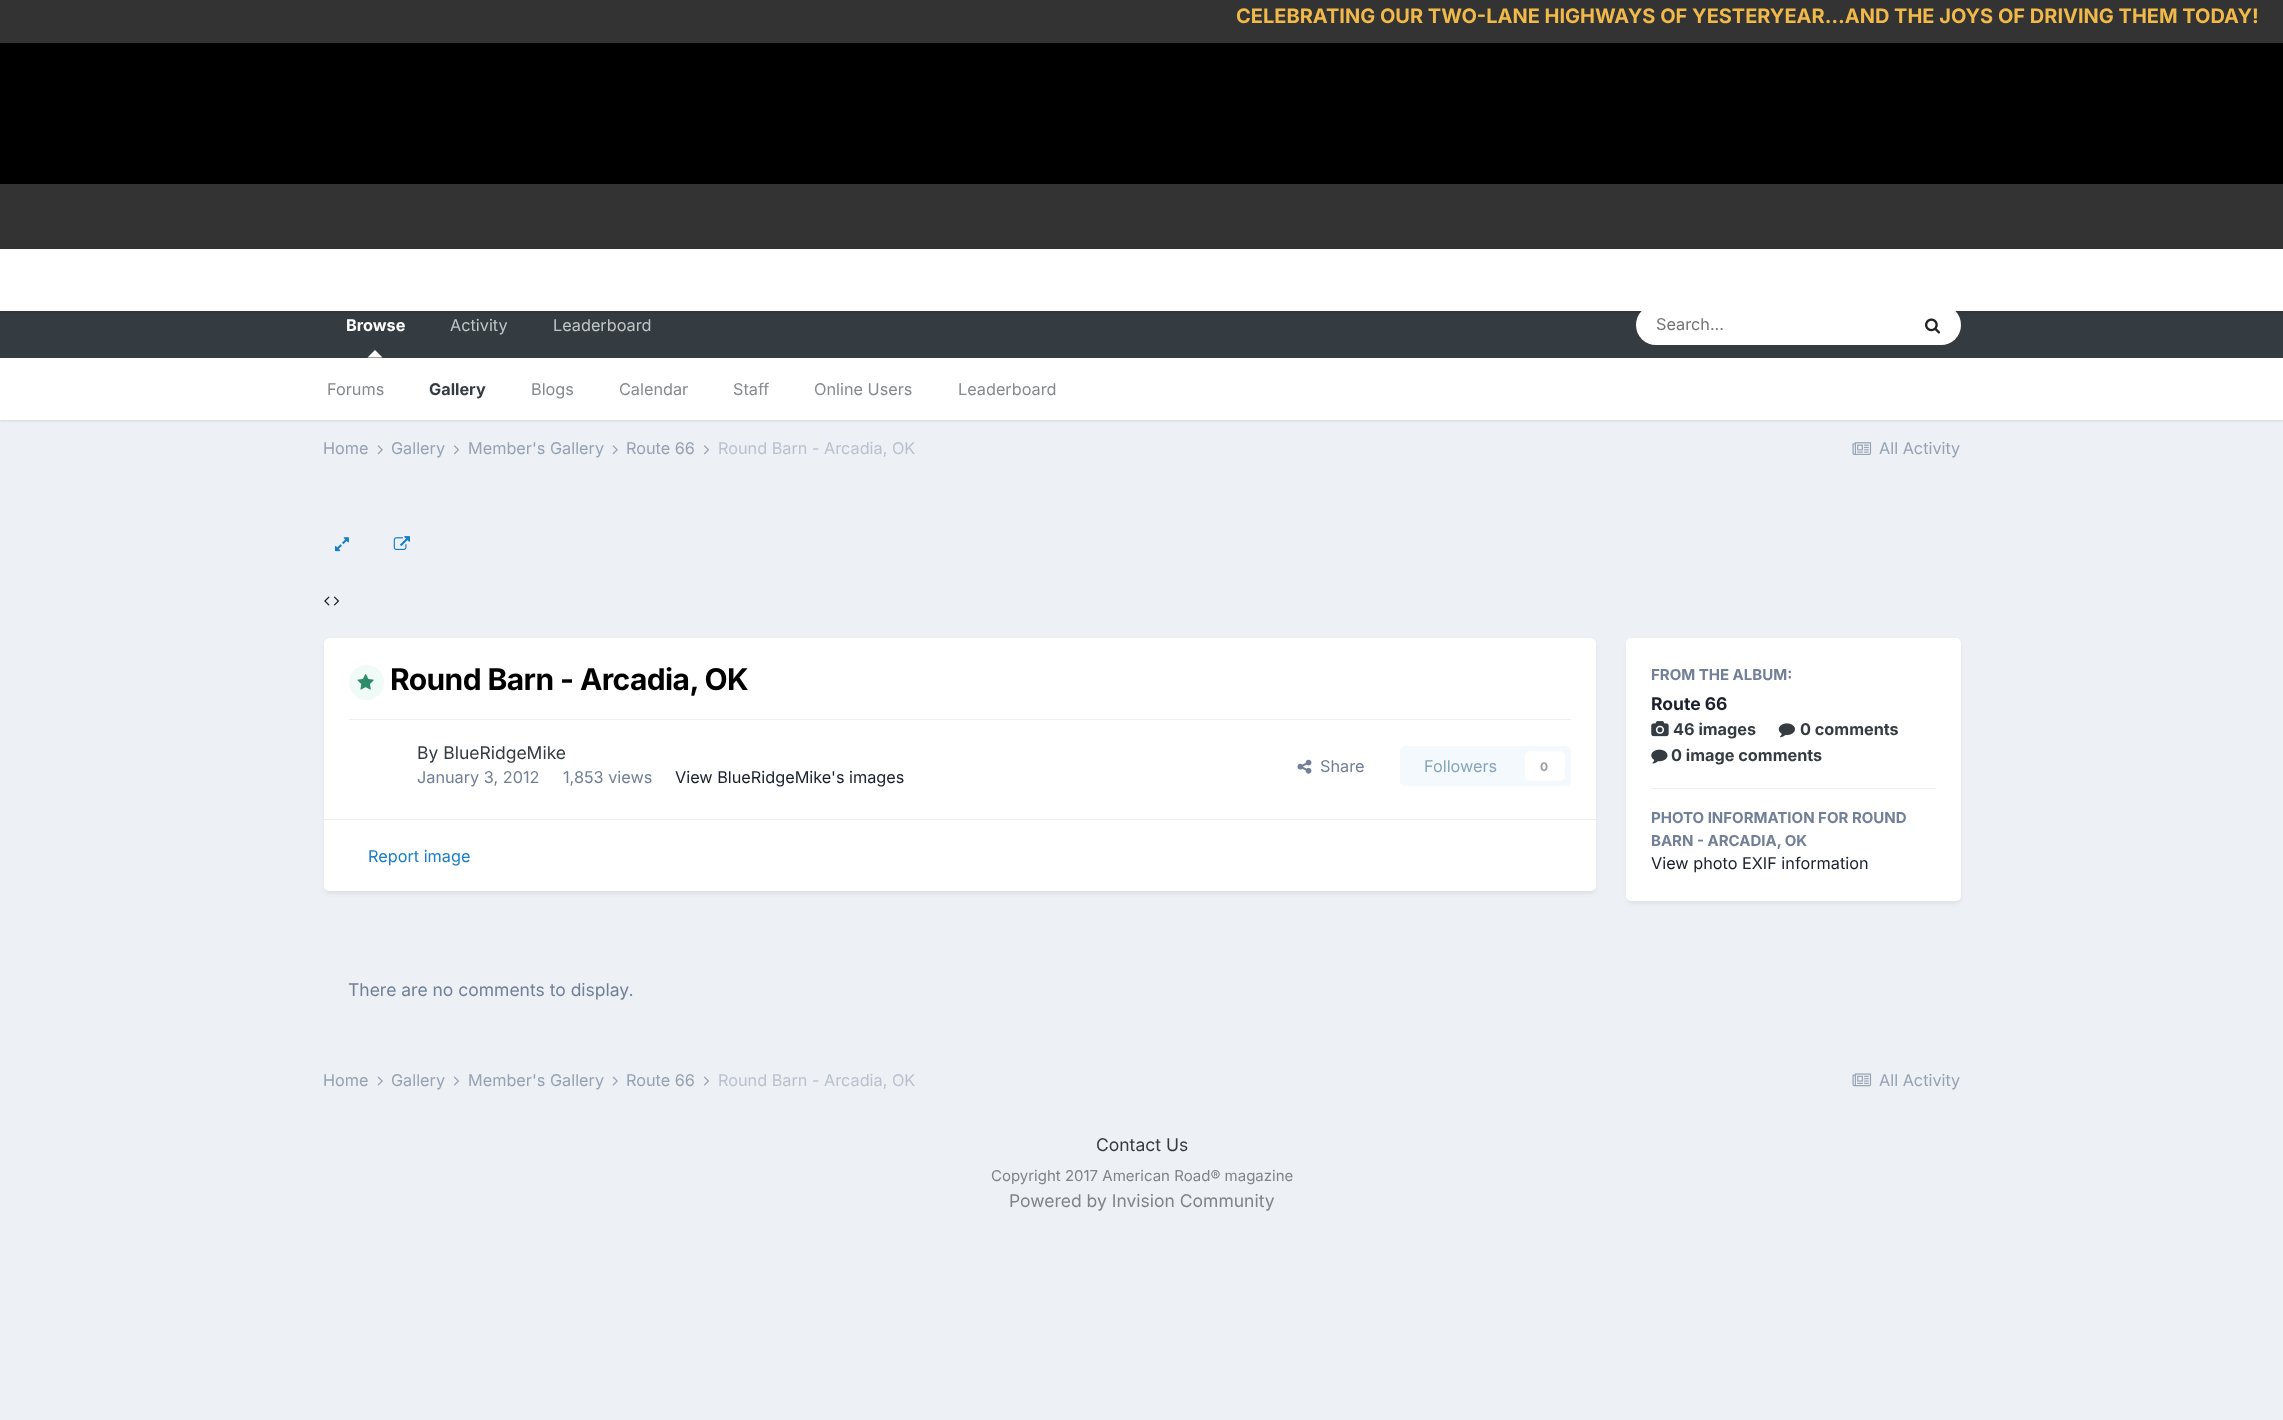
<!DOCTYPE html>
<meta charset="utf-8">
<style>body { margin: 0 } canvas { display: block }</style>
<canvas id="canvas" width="2283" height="1420"></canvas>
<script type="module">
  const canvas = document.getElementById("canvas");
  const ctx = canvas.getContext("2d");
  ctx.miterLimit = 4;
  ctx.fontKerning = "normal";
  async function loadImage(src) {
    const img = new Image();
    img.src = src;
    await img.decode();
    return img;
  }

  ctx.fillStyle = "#edf0f4";
  ctx.fillRect(0, 0, 2283, 1420);
  ctx.fillStyle = "#333333";
  ctx.fillRect(0, 0, 2283, 249);
  ctx.fillStyle = "#000000";
  ctx.fillRect(0, 43, 2283, 141);
  ctx.save();
  ctx.beginPath();
  ctx.moveTo(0, 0);
  ctx.lineTo(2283, 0);
  ctx.lineTo(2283, 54);
  ctx.lineTo(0, 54);
  ctx.closePath();
  ctx.moveTo(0, -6);
  ctx.lineTo(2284, -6);
  ctx.lineTo(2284, 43);
  ctx.lineTo(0, 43);
  ctx.closePath();
  ctx.clip("evenodd");
  ctx.fillStyle = "rgba(0, 0, 0, 0.5)";
  ctx.filter = "blur(2.5px)";
  ctx.beginPath();
  ctx.rect(0, -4, 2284, 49);
  ctx.fill();
  ctx.filter = "none";
  ctx.restore();
  ctx.font = "bold 20px Inter";
  ctx.fillStyle = "#f0b94a";
  ctx.fillText("CELEBRATING OUR TWO-LANE HIGHWAYS OF YESTERYEAR…AND THE JOYS OF DRIVING THEM TODAY!", 1236, 23);
  ctx.fillStyle = "#353c41";
  ctx.fillRect(0, 311, 2283, 47);
  ctx.fillStyle = "rgba(0, 0, 0, 0.1)";
  ctx.filter = "blur(1px)";
  ctx.beginPath();
  ctx.rect(0, 250, 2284, 63);
  ctx.fill();
  ctx.filter = "none";
  ctx.fillStyle = "#ffffff";
  ctx.fillRect(0, 249, 2283, 62);
  ctx.font = "16.25px Inter";
  ctx.fillStyle = "#c2c5c6";
  ctx.fillText("Activity", 450, 331);
  ctx.font = "bold 16.25px Inter";
  ctx.fillStyle = "#ffffff";
  ctx.fillText("Browse", 346, 331);
  ctx.fillStyle = "rgba(0, 0, 0, 0.1)";
  ctx.filter = "blur(1px)";
  ctx.beginPath();
  ctx.rect(0, 359, 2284, 62);
  ctx.fill();
  ctx.filter = "none";
  ctx.fillStyle = "#ffffff";
  ctx.beginPath();
  ctx.moveTo(382.5, 357.5);
  ctx.lineTo(367.5, 357.5);
  ctx.lineTo(375, 350);
  ctx.closePath();
  ctx.fill();
  ctx.fillRect(0, 358, 2283, 62);
  ctx.font = "16.25px Inter";
  ctx.fillStyle = "#868a8d";
  ctx.fillText("Forums", 327, 395);
  ctx.font = "bold 16.25px Inter";
  ctx.fillStyle = "#353c41";
  ctx.fillText("Gallery", 429, 395);
  ctx.font = "16.25px Inter";
  ctx.fillStyle = "#868a8d";
  ctx.fillText("Blogs", 531, 395);
  ctx.fillText("Calendar", 619, 395);
  ctx.fillText("Staff", 733, 395);
  ctx.fillText("Online Users", 814, 395);
  ctx.fillText("Leaderboard", 958, 395);
  ctx.fillStyle = "#c2c5c6";
  ctx.fillText("Leaderboard", 553, 331);
  ctx.fillStyle = "#ffffff";
  ctx.beginPath();
  ctx.roundRect(1636, 305, 325, 40, 20);
  ctx.fill();
  ctx.fillStyle = "#757575";
  ctx.fillText("Search...", 1656, 330);
  ctx.drawImage(await loadImage("img1.png"), 1925, 318, 16, 16);
  ctx.fillStyle = "#96a2b2";
  ctx.fillText("Home", 323, 454);
  ctx.drawImage(await loadImage("img2.png"), 377, 445, 6, 10);
  ctx.fillText("Gallery", 391, 454);
  ctx.drawImage(await loadImage("img3.png"), 454, 445, 5, 10);
  ctx.fillText("Member's Gallery", 468, 454);
  ctx.drawImage(await loadImage("img2.png"), 612, 445, 6, 10);
  ctx.fillText("Route 66", 626, 454);
  ctx.drawImage(await loadImage("img3.png"), 704, 445, 5, 10);
  ctx.fillStyle = "#b9c1cd";
  ctx.fillText("Round Barn - Arcadia, OK", 718, 454);
  ctx.drawImage(await loadImage("img4.png"), 1852, 442, 20, 13);
  ctx.fillStyle = "#96a2b2";
  ctx.fillText("All Activity", 1879, 454);
  ctx.drawImage(await loadImage("img5.png"), 335, 537, 14, 15);
  ctx.drawImage(await loadImage("img6.png"), 393, 536, 17, 14);
  ctx.drawImage(await loadImage("img7.png"), 324, 596, 6, 10);
  ctx.drawImage(await loadImage("img8.png"), 333, 596, 7, 10);
  ctx.fillStyle = "rgba(45, 55, 72, 0.1)";
  ctx.filter = "blur(2.5px)";
  ctx.beginPath();
  ctx.roundRect(325, 641, 1270, 252, 4);
  ctx.fill();
  ctx.filter = "none";
  ctx.fillStyle = "#ffffff";
  ctx.beginPath();
  ctx.roundRect(324, 638, 1272, 253, 5);
  ctx.fill();
  ctx.fillStyle = "#f0faf6";
  ctx.beginPath();
  ctx.arc(366.5, 682.5, 17.5, 0, Math.PI * 2);
  ctx.fill();
  ctx.drawImage(await loadImage("img9.png"), 357, 674, 17, 16);
  ctx.letterSpacing = "-0.6px";
  ctx.font = "bold 30px Inter";
  ctx.fillStyle = "#000000";
  ctx.fillText("Round Barn - Arcadia, OK", 390, 690);
  ctx.fillStyle = "#efeff0";
  ctx.fillRect(349, 719, 1222, 1);
  ctx.letterSpacing = "0px";
  ctx.font = "17.5px Inter";
  ctx.fillStyle = "#353c41";
  ctx.fillText("By BlueRidgeMike", 417, 759);
  ctx.font = "16.25px Inter";
  ctx.fillStyle = "#718096";
  ctx.fillText("January 3, 2012", 417, 783);
  ctx.fillText("1,853 views", 563, 783);
  ctx.fillStyle = "#1a202c";
  ctx.fillText("View BlueRidgeMike's images", 675, 783);
  ctx.drawImage(await loadImage("img10.png"), 1297, 759, 15, 15);
  ctx.fillStyle = "#718096";
  ctx.fillText("Share", 1320, 772);
  ctx.fillStyle = "#f4f9fd";
  ctx.beginPath();
  ctx.roundRect(1400, 746, 171, 40, 5);
  ctx.fill();
  ctx.fillStyle = "#87a6bc";
  ctx.fillText("Followers", 1424, 772);
  ctx.fillStyle = "#ffffff";
  ctx.beginPath();
  ctx.roundRect(1525, 751, 40, 30, 5);
  ctx.fill();
  ctx.font = "bold 12px Inter";
  ctx.fillStyle = "#9a9ea0";
  ctx.fillText("0", 1540, 771);
  ctx.fillStyle = "#ebecec";
  ctx.fillRect(324, 819, 1272, 1);
  ctx.font = "16.25px Inter";
  ctx.fillStyle = "#177ec9";
  ctx.fillText("Report image", 368, 862);
  ctx.fillStyle = "rgba(45, 55, 72, 0.1)";
  ctx.filter = "blur(2.5px)";
  ctx.beginPath();
  ctx.roundRect(1628, 641, 332, 262, 4);
  ctx.fill();
  ctx.filter = "none";
  ctx.fillStyle = "#ffffff";
  ctx.beginPath();
  ctx.roundRect(1626, 638, 335, 263, 5);
  ctx.fill();
  ctx.font = "bold 15px Inter";
  ctx.fillStyle = "#718096";
  ctx.fillText("FROM THE ALBUM:", 1651, 680);
  ctx.font = "bold 17.5px Inter";
  ctx.fillStyle = "#1a202c";
  ctx.fillText("Route 66", 1651, 710);
  ctx.drawImage(await loadImage("img11.png"), 1651, 721, 18, 16);
  ctx.font = "bold 16.25px Inter";
  ctx.fillStyle = "#353c41";
  ctx.fillText("46 images", 1673, 735);
  ctx.drawImage(await loadImage("img12.png"), 1778, 723, 17, 15);
  ctx.fillText("0 comments", 1800, 735);
  ctx.drawImage(await loadImage("img13.png"), 1651, 749, 17, 15);
  ctx.fillText("0 image comments", 1671, 761);
  ctx.fillStyle = "#efeff0";
  ctx.fillRect(1651, 788, 285, 1);
  ctx.font = "bold 15px Inter";
  ctx.fillStyle = "#718096";
  ctx.fillText("PHOTO INFORMATION FOR ROUND", 1651, 823);
  ctx.fillText("BARN - ARCADIA, OK", 1651, 846);
  ctx.font = "16.25px Inter";
  ctx.fillStyle = "#1a202c";
  ctx.fillText("View photo EXIF information", 1651, 869);
  ctx.font = "17.5px Inter";
  ctx.fillStyle = "#718096";
  ctx.fillText("There are no comments to display.", 348, 996);
  ctx.font = "16.25px Inter";
  ctx.fillStyle = "#96a2b2";
  ctx.fillText("Home", 323, 1086);
  ctx.drawImage(await loadImage("img14.png"), 377, 1076, 6, 10);
  ctx.fillText("Gallery", 391, 1086);
  ctx.drawImage(await loadImage("img15.png"), 454, 1076, 5, 10);
  ctx.fillText("Member's Gallery", 468, 1086);
  ctx.drawImage(await loadImage("img14.png"), 612, 1076, 6, 10);
  ctx.fillText("Route 66", 626, 1086);
  ctx.drawImage(await loadImage("img15.png"), 704, 1076, 5, 10);
  ctx.fillStyle = "#b9c1cd";
  ctx.fillText("Round Barn - Arcadia, OK", 718, 1086);
  ctx.drawImage(await loadImage("img16.png"), 1852, 1073, 20, 14);
  ctx.fillStyle = "#96a2b2";
  ctx.fillText("All Activity", 1879, 1086);
  ctx.font = "17.5px Inter";
  ctx.fillStyle = "#353c41";
  ctx.fillText("Contact Us", 1096, 1151);
  ctx.font = "15px Inter";
  ctx.fillStyle = "#7f8489";
  ctx.fillText("Copyright 2017 American Road® magazine", 991, 1181);
  ctx.font = "17.5px Inter";
  ctx.fillText("Powered by Invision Community", 1009, 1207);
</script>
